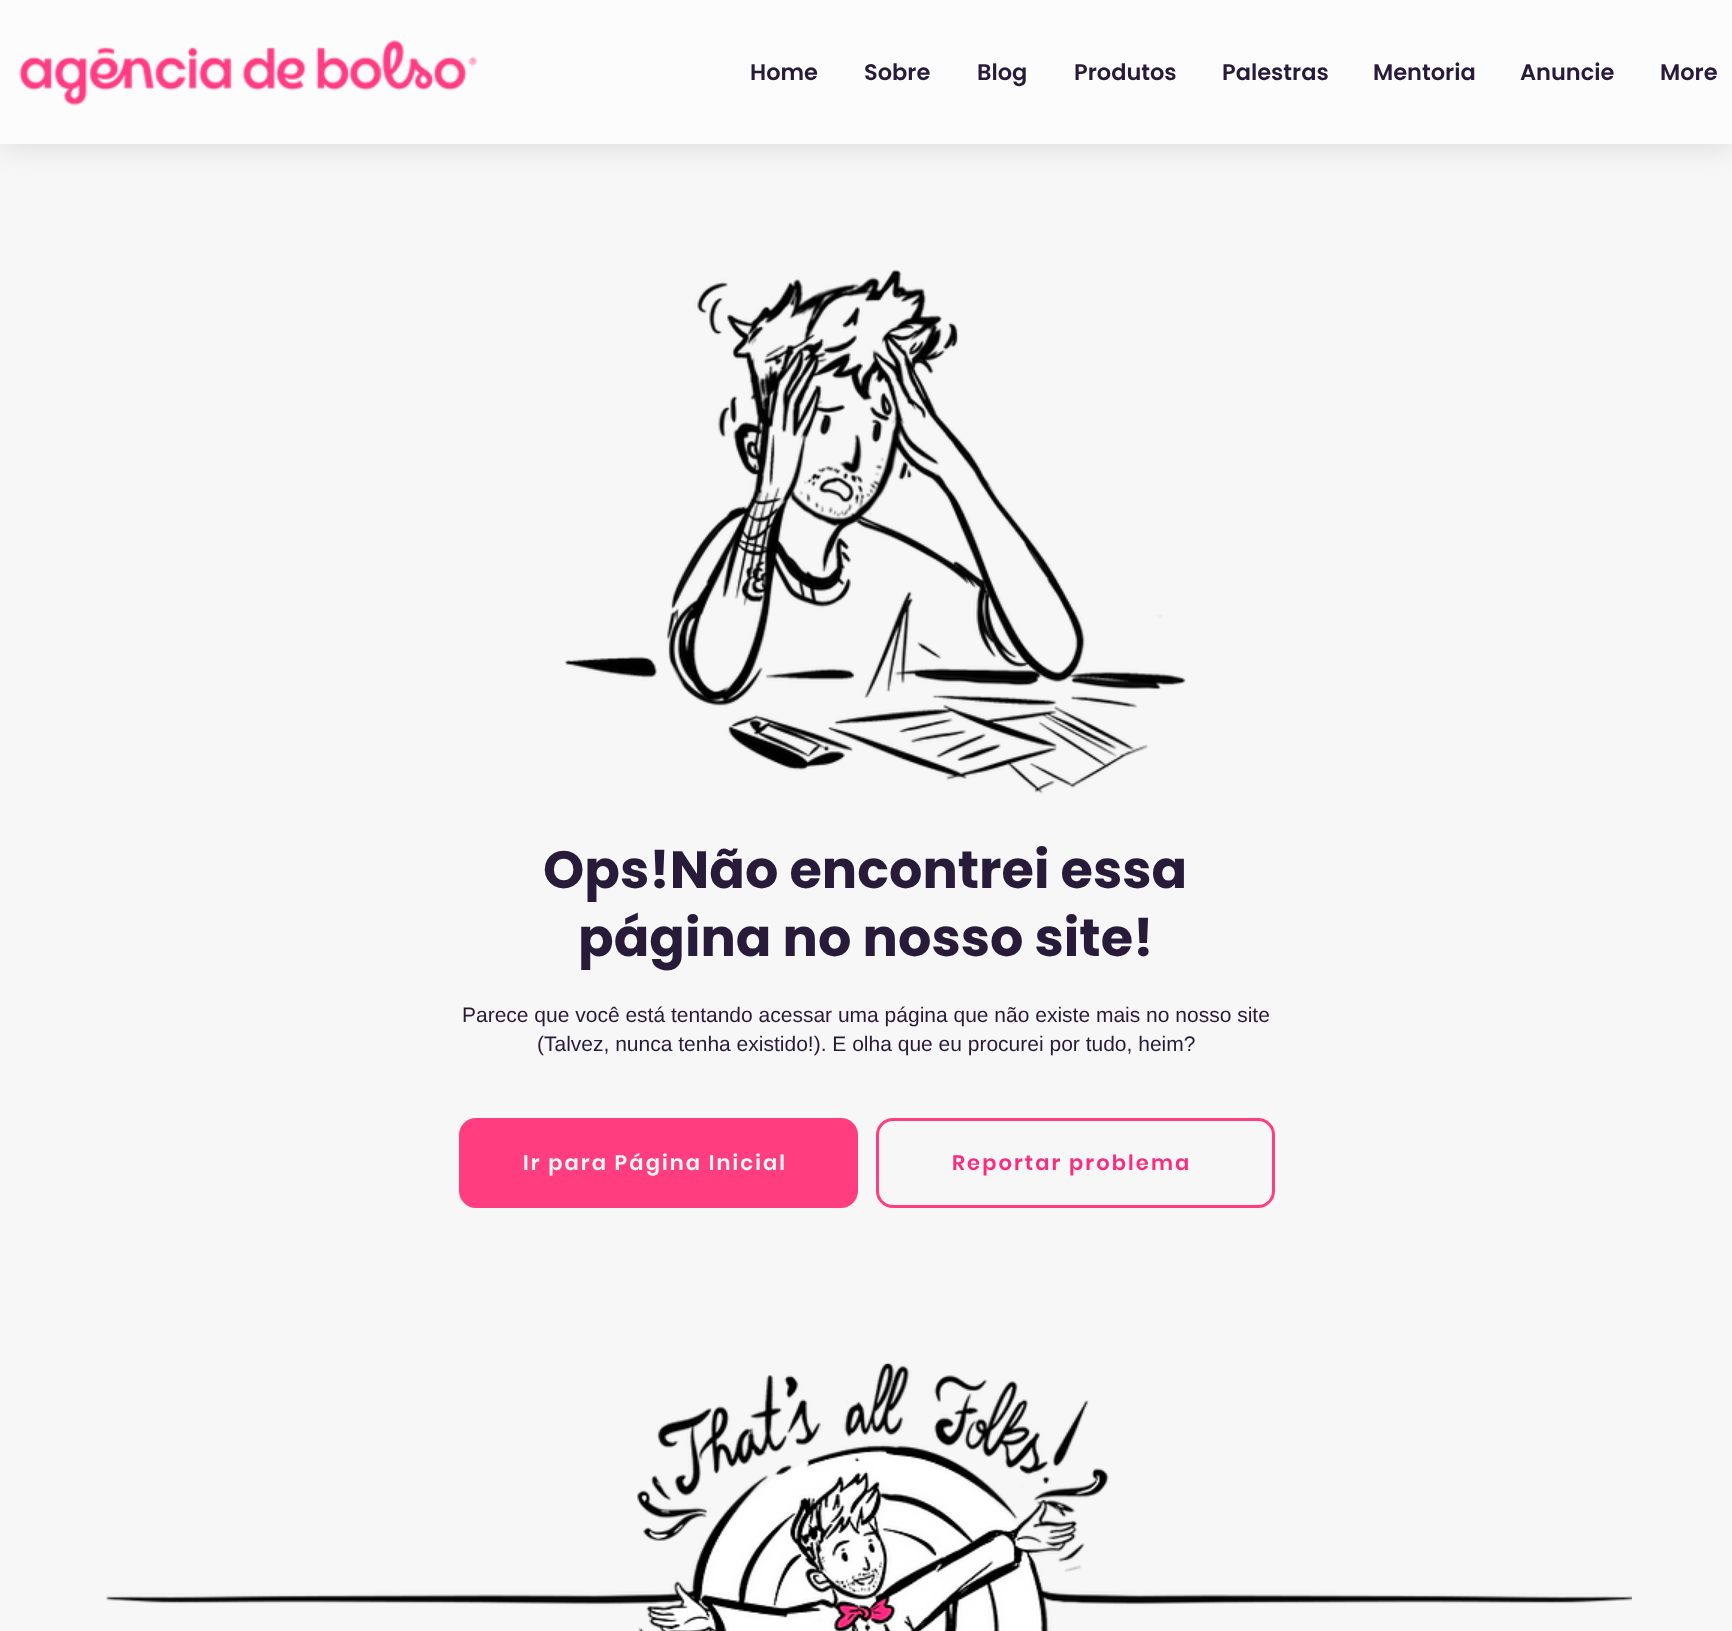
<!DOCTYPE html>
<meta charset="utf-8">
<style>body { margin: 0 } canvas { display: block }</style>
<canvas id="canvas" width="1732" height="1631"></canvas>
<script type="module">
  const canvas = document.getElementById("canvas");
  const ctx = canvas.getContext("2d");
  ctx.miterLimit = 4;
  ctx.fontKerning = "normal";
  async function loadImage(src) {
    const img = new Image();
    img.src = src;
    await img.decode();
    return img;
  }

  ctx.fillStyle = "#f7f7f7";
  ctx.fillRect(0, 0, 1732, 1631);
  ctx.fillStyle = "rgba(0, 0, 0, 0.13)";
  ctx.filter = "blur(16px)";
  ctx.beginPath();
  ctx.rect(0, 0, 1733, 144);
  ctx.fill();
  ctx.filter = "none";
  ctx.fillStyle = "#fcfcfc";
  ctx.fillRect(0, 0, 1732, 144);
  ctx.drawImage(await loadImage("img1.png"), 19, 40, 459, 66);
  ctx.font = "600 22.5px 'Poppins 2'";
  ctx.fillStyle = "#281a39";
  ctx.fillText("Home", 750, 80);
  ctx.fillText("Sobre", 864, 80);
  ctx.fillText("Blog", 977, 80);
  ctx.fillText("Produtos", 1074, 80);
  ctx.fillText("Palestras", 1222, 80);
  ctx.fillText("Mentoria", 1373, 80);
  ctx.fillText("Anuncie", 1520, 80);
  ctx.fillText("More", 1660, 80);
  ctx.drawImage(await loadImage("img2.png"), 565, 269, 621, 525);
  ctx.font = "bold 52.5px Poppins";
  ctx.fillText("Ops!Não encontrei essa", 543, 888);
  ctx.fillText("página no nosso site!", 578, 956);
  ctx.font = "21px Liberation Sans";
  ctx.fillText("Parece que você está tentando acessar uma página que não existe mais no nosso site", 462, 1022);
  ctx.fillText("(Talvez, nunca tenha existido!). E olha que eu procurei por tudo, heim?", 537, 1051);
  ctx.fillStyle = "#ff3d7f";
  ctx.beginPath();
  ctx.roundRect(459, 1118, 399, 90, 17);
  ctx.fill();
  ctx.letterSpacing = "2.1px";
  ctx.font = "600 21px Poppins";
  ctx.fillStyle = "#f7f7f7";
  ctx.fillText("Ir para Página Inicial", 523, 1170);
  ctx.beginPath();
  ctx.roundRect(877.5, 1119.5, 396, 87, 15.5);
  ctx.strokeStyle = "#ff3d7f";
  ctx.lineWidth = 3;
  ctx.stroke();
  ctx.fillStyle = "#fb2c7f";
  ctx.fillText("Reportar problema", 952, 1170);
  ctx.drawImage(await loadImage("img3.png"), 106, 1363, 1526, 268);
</script>
